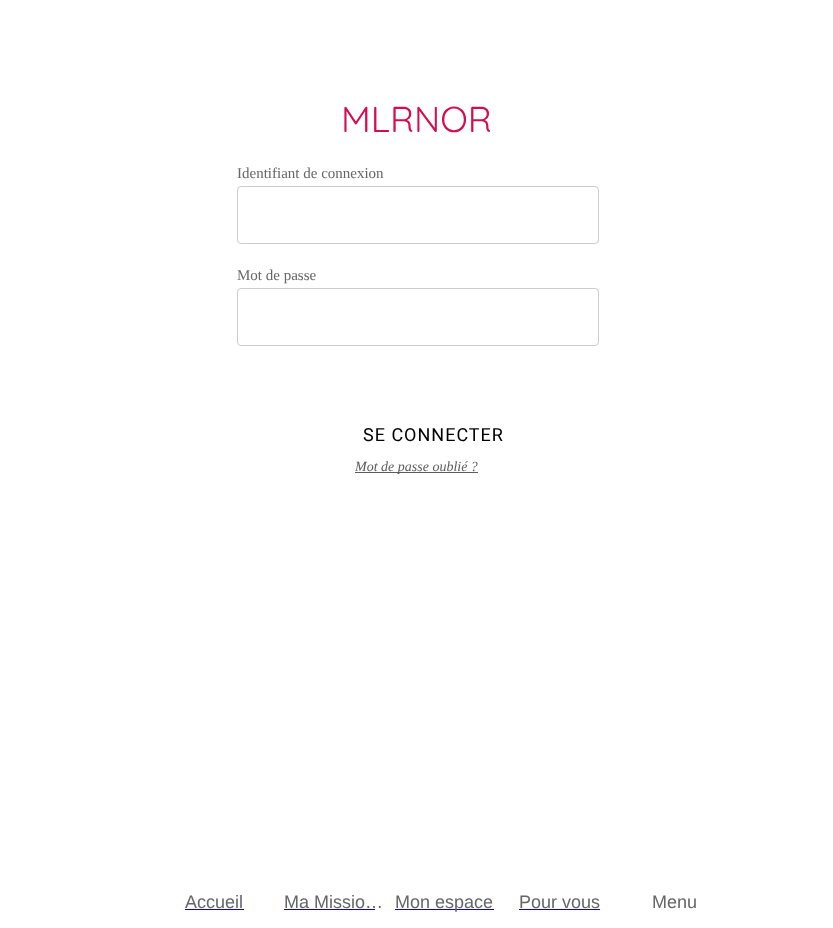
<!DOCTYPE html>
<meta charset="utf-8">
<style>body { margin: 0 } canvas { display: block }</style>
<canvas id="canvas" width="833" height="928"></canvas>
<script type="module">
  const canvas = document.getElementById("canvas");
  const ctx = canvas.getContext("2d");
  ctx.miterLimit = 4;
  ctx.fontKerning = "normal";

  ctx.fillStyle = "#ffffff";
  ctx.fillRect(0, 0, 833, 928);
  ctx.font = "36px Quicksand";
  ctx.fillStyle = "#d60b52";
  ctx.fillText("MLRNOR", 341, 132);
  ctx.font = "15px Liberation Serif";
  ctx.fillStyle = "#666666";
  ctx.fillText("Identifiant de connexion", 237, 178);
  ctx.beginPath();
  ctx.roundRect(237.5, 186.5, 361, 57, 3.5);
  ctx.strokeStyle = "#cccccc";
  ctx.stroke();
  ctx.fillText("Mot de passe", 237, 280);
  ctx.beginPath();
  ctx.roundRect(237.5, 288.5, 361, 57, 3.5);
  ctx.stroke();
  ctx.letterSpacing = "1px";
  ctx.font = "18px Roboto";
  ctx.fillStyle = "#000000";
  ctx.fillText("SE CONNECTER", 363, 441);
  ctx.fillStyle = "#5c5c5c";
  ctx.fillRect(355, 472, 123, 1);
  ctx.letterSpacing = "0px";
  ctx.font = "italic 14px Liberation Serif";
  ctx.fillText("Mot de passe oublié ?", 355, 471);
  ctx.font = "18px Liberation Sans";
  ctx.fillStyle = "#666666";
  ctx.fillText("Accueil", 185, 908);
  ctx.fillStyle = "#0000ee";
  ctx.fillRect(185, 909, 59, 1);
  ctx.fillStyle = "#666666";
  ctx.fillText("Ma Missio…", 284, 908);
  ctx.fillStyle = "#0000ee";
  ctx.fillRect(284, 909, 91, 1);
  ctx.fillRect(395, 909, 99, 1);
  ctx.fillStyle = "#666666";
  ctx.fillText("Mon espace", 395, 908);
  ctx.fillText("Pour vous", 519, 908);
  ctx.fillStyle = "#0000ee";
  ctx.fillRect(519, 909, 81, 1);
  ctx.fillStyle = "#666666";
  ctx.fillText("Menu", 652, 908);
</script>
